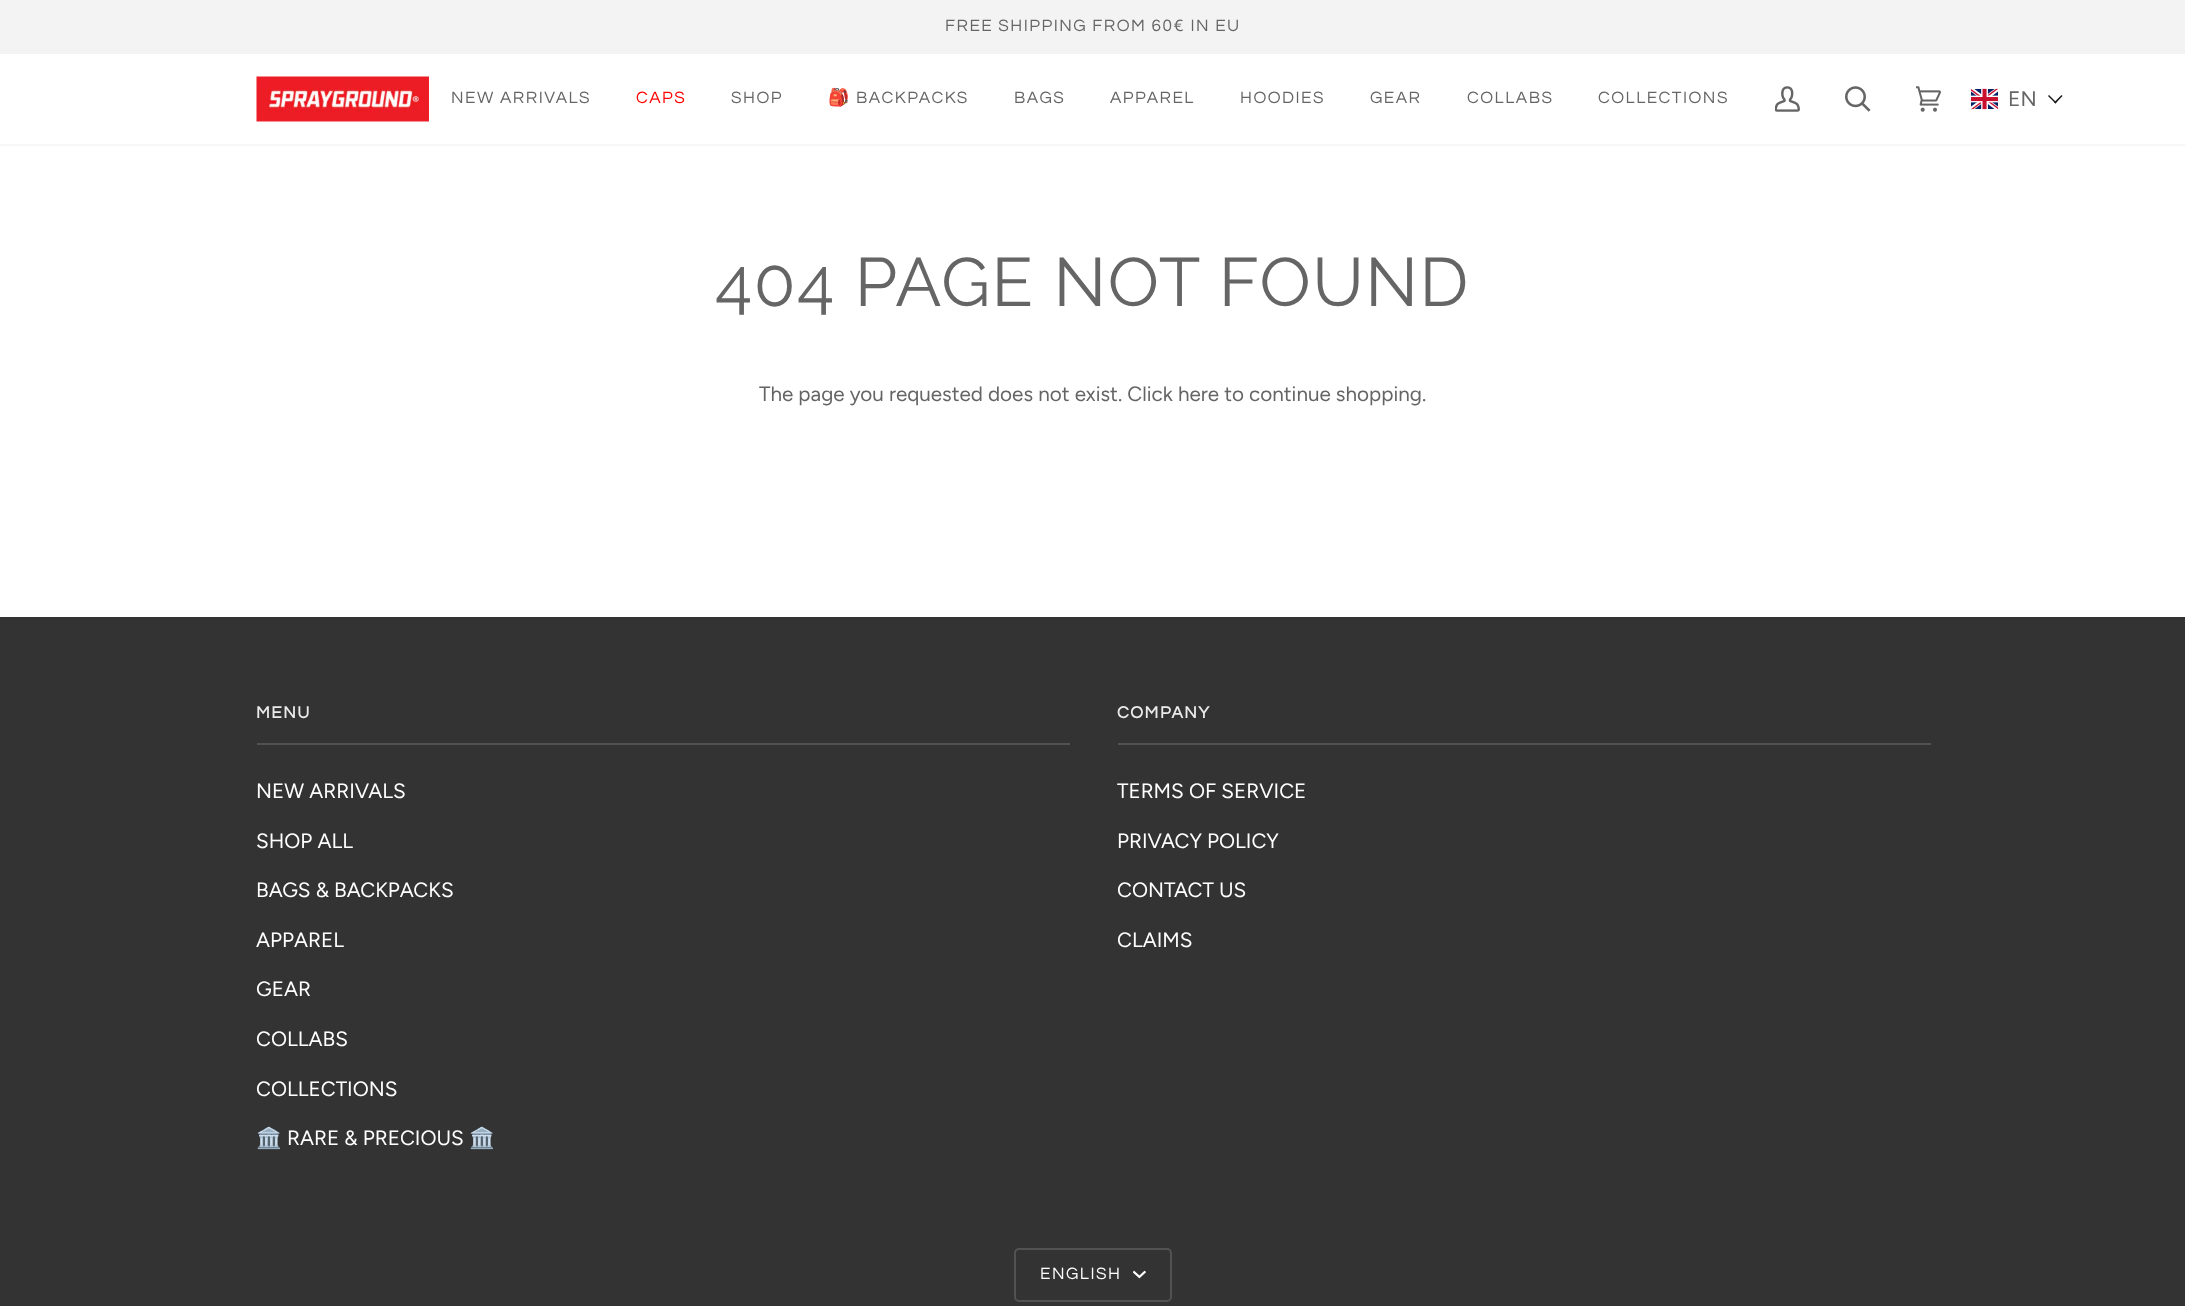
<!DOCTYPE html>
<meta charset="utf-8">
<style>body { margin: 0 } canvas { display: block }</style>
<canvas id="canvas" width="2185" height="1306"></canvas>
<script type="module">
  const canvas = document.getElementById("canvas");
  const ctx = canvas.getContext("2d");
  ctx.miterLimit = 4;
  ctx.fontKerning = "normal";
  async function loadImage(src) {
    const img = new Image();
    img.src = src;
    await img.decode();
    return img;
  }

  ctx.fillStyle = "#ffffff";
  ctx.fillRect(0, 0, 2185, 1306);
  ctx.fillStyle = "#f3f3f3";
  ctx.fillRect(0, 0, 2185, 54);
  ctx.letterSpacing = "1.5px";
  ctx.font = "17.1px Questrial";
  ctx.fillStyle = "#656565";
  ctx.fillText("FREE SHIPPING FROM 60€ IN EU", 945, 31);
  ctx.fillStyle = "#f7f7f7";
  ctx.fillRect(0, 144, 2185, 2);
  ctx.drawImage(await loadImage("img1.png"), 256, 76, 173, 46);
  ctx.fillStyle = "#656565";
  ctx.fillText("NEW ARRIVALS", 451, 103);
  ctx.fillStyle = "#ff0000";
  ctx.fillText("CAPS", 636, 103);
  ctx.fillStyle = "#656565";
  ctx.fillText("SHOP", 731, 103);
  ctx.font = "17.1px Noto Color Emoji";
  ctx.fillText("🎒", 828, 103);
  ctx.font = "17.1px Questrial";
  ctx.fillText("BACKPACKS", 856, 103);
  ctx.fillText("BAGS", 1014, 103);
  ctx.fillText("APPAREL", 1110, 103);
  ctx.fillText("HOODIES", 1240, 103);
  ctx.fillText("GEAR", 1370, 103);
  ctx.fillText("COLLABS", 1467, 103);
  ctx.fillText("COLLECTIONS", 1598, 103);
  ctx.drawImage(await loadImage("img2.png"), 1775, 86, 25, 26);
  ctx.drawImage(await loadImage("img3.png"), 1845, 86, 26, 26);
  ctx.drawImage(await loadImage("img4.png"), 1916, 86, 25, 26);
  ctx.drawImage(await loadImage("img5.png"), 1971, 88, 27, 22);
  ctx.letterSpacing = "0px";
  ctx.font = "21px Figtree";
  ctx.fillText("EN", 2008, 106);
  ctx.fillStyle = "#1a1a1a";
  ctx.beginPath();
  ctx.moveTo(2061.5, 95);
  ctx.lineTo(2062.5, 96);
  ctx.lineTo(2055.5, 103.5);
  ctx.lineTo(2054, 102.5);
  ctx.closePath();
  ctx.fill();
  ctx.beginPath();
  ctx.moveTo(2049, 95);
  ctx.lineTo(2056.5, 102.5);
  ctx.lineTo(2055.5, 103.5);
  ctx.lineTo(2048, 96);
  ctx.closePath();
  ctx.fill();
  ctx.letterSpacing = "1.5px";
  ctx.font = "68.25px Raleway";
  ctx.fillStyle = "#656565";
  ctx.fillText("404 PAGE NOT FOUND", 715, 306);
  ctx.letterSpacing = "0px";
  ctx.font = "20.7px Figtree";
  ctx.fillText("The page you requested does not exist. Click here to continue shopping.", 759, 401);
  ctx.fillStyle = "#333333";
  ctx.fillRect(0, 617, 2185, 689);
  ctx.fillStyle = "#525252";
  ctx.fillRect(257, 743, 813, 2);
  ctx.letterSpacing = "1.5px";
  ctx.font = "bold 17.1px Questrial";
  ctx.fillStyle = "#ebebeb";
  ctx.fillText("MENU", 256, 718);
  ctx.letterSpacing = "0px";
  ctx.font = "20.7px Figtree";
  ctx.fillStyle = "#ffffff";
  ctx.fillText("NEW ARRIVALS", 256, 798);
  ctx.fillText("SHOP ALL", 256, 848);
  ctx.fillText("BAGS & BACKPACKS", 256, 897);
  ctx.fillText("APPAREL", 256, 947);
  ctx.fillText("GEAR", 256, 996);
  ctx.fillText("COLLABS", 256, 1046);
  ctx.fillText("COLLECTIONS", 256, 1096);
  ctx.font = "20.7px Noto Color Emoji";
  ctx.fillText("🏛️", 256, 1145);
  ctx.font = "20.7px Figtree";
  ctx.fillText("RARE & PRECIOUS", 287, 1145);
  ctx.font = "20.7px Noto Color Emoji";
  ctx.fillText("🏛️", 469, 1145);
  ctx.fillStyle = "#525252";
  ctx.fillRect(1118, 743, 813, 2);
  ctx.letterSpacing = "1.5px";
  ctx.font = "bold 17.1px Questrial";
  ctx.fillStyle = "#ebebeb";
  ctx.fillText("COMPANY", 1117, 718);
  ctx.letterSpacing = "0px";
  ctx.font = "20.7px Figtree";
  ctx.fillStyle = "#ffffff";
  ctx.fillText("TERMS OF SERVICE", 1117, 798);
  ctx.fillText("PRIVACY POLICY", 1117, 848);
  ctx.fillText("CONTACT US", 1117, 897);
  ctx.fillText("CLAIMS", 1117, 947);
  ctx.beginPath();
  ctx.roundRect(1015, 1249, 156, 52, 4);
  ctx.strokeStyle = "#525252";
  ctx.lineWidth = 2;
  ctx.stroke();
  ctx.letterSpacing = "1.5px";
  ctx.font = "17.1px Questrial";
  ctx.fillText("ENGLISH", 1040, 1279);
  ctx.drawImage(await loadImage("img6.png"), 1133, 1270, 13, 9);
</script>
